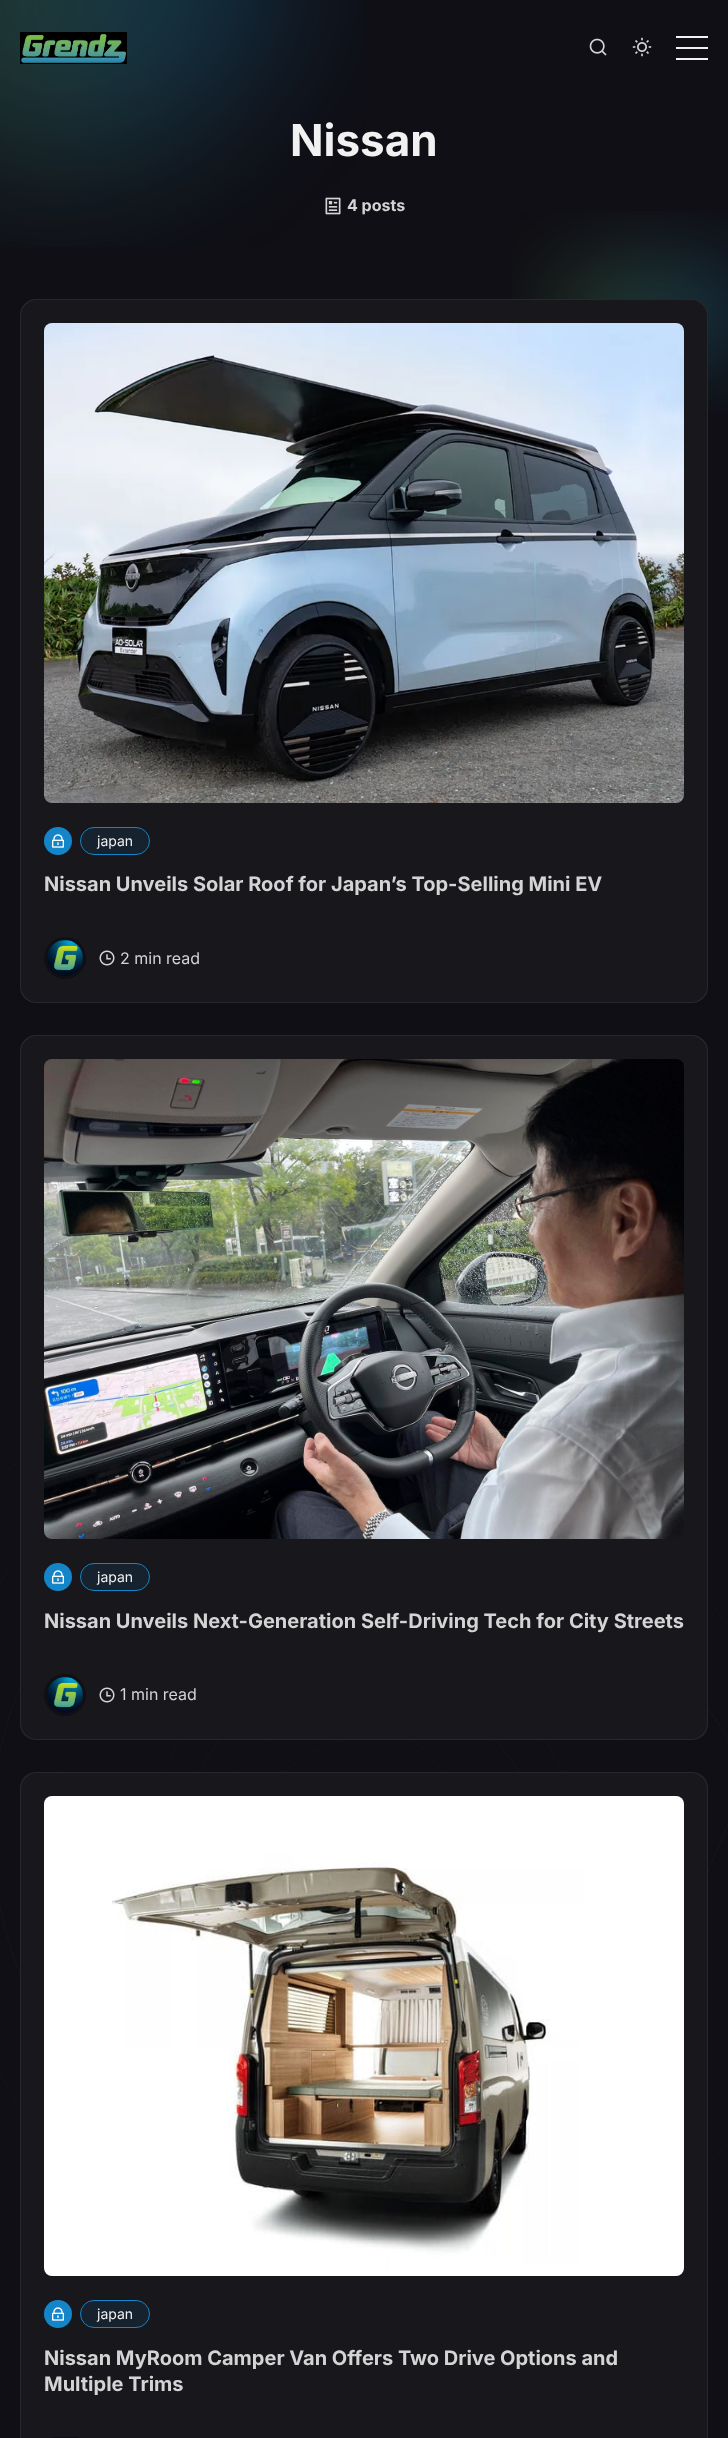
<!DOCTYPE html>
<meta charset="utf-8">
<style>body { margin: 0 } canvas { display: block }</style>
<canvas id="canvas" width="728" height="2438"></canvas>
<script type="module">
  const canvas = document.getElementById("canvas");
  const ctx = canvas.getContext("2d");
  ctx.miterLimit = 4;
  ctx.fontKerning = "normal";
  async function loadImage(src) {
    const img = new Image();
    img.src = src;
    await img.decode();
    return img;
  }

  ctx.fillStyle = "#100f15";
  ctx.fillRect(0, 0, 728, 2438);
  ctx.drawImage(await loadImage("img1.png"), 0, 0, 365, 247);
  ctx.drawImage(await loadImage("img2.png"), 512, 211, 216, 203);
  ctx.drawImage(await loadImage("img3.png"), 0, 1462, 728, 733);
  ctx.drawImage(await loadImage("img4.png"), 20, 32, 107, 32);
  ctx.drawImage(await loadImage("img5.png"), 589, 38, 18, 18);
  ctx.drawImage(await loadImage("img6.png"), 632, 37, 20, 20);
  ctx.fillStyle = "#f1f1f1";
  ctx.fillRect(676, 47, 32, 2);
  ctx.fillRect(676, 36, 32, 2);
  ctx.fillRect(676, 58, 32, 2);
  ctx.font = "bold 44px Inter";
  ctx.fillText("Nissan", 290, 156);
  ctx.drawImage(await loadImage("img7.png"), 325, 197, 16, 18);
  ctx.font = "bold 16px Inter";
  ctx.fillStyle = "#d4d4d4";
  ctx.fillText("4 posts", 347, 211);
  ctx.fillStyle = "#28272c";
  ctx.beginPath();
  ctx.roundRect(20, 299, 688, 704, 16);
  ctx.fill();
  ctx.fillStyle = "#17171c";
  ctx.beginPath();
  ctx.roundRect(21, 300, 686, 702, 16);
  ctx.fill();
  ctx.drawImage(await loadImage("img8.png"), 44, 323, 640, 480);
  ctx.fillStyle = "#1585ca";
  ctx.beginPath();
  ctx.arc(58, 841, 14, 0, Math.PI * 2);
  ctx.fill();
  ctx.drawImage(await loadImage("img9.png"), 52, 834, 12, 14);
  ctx.beginPath();
  ctx.roundRect(80.5, 827.5, 69, 27, 13.5);
  ctx.strokeStyle = "#1585ca";
  ctx.stroke();
  ctx.fillStyle = "rgba(21, 133, 202, 0.1)";
  ctx.beginPath();
  ctx.roundRect(81, 828, 68, 26, 13);
  ctx.fill();
  ctx.font = "14px Inter";
  ctx.fillStyle = "#f1f1f1";
  ctx.fillText("japan", 97, 846);
  ctx.font = "bold 20px Inter";
  ctx.fillStyle = "#d4d4d4";
  ctx.fillText("Nissan Unveils Solar Roof for Japan’s Top-Selling Mini EV", 44, 891);
  ctx.fillStyle = "#100f15";
  ctx.beginPath();
  ctx.arc(65, 958, 21, 0, Math.PI * 2);
  ctx.fill();
  ctx.drawImage(await loadImage("img10.png"), 47, 940, 36, 36);
  ctx.drawImage(await loadImage("img11.png"), 99, 950, 16, 16);
  ctx.font = "16px Inter";
  ctx.fillStyle = "#d4d4d4";
  ctx.fillText("2 min read", 120, 964);
  ctx.fillStyle = "#28272c";
  ctx.beginPath();
  ctx.roundRect(20, 1035, 688, 705, 16);
  ctx.fill();
  ctx.fillStyle = "#17171c";
  ctx.beginPath();
  ctx.roundRect(21, 1036, 686, 703, 16);
  ctx.fill();
  ctx.drawImage(await loadImage("img12.png"), 44, 1059, 640, 480);
  ctx.fillStyle = "#1585ca";
  ctx.beginPath();
  ctx.arc(58, 1577, 14, 0, Math.PI * 2);
  ctx.fill();
  ctx.drawImage(await loadImage("img9.png"), 52, 1570, 12, 14);
  ctx.beginPath();
  ctx.roundRect(80.5, 1563.5, 69, 27, 13.5);
  ctx.stroke();
  ctx.fillStyle = "rgba(21, 133, 202, 0.1)";
  ctx.beginPath();
  ctx.roundRect(81, 1564, 68, 26, 13);
  ctx.fill();
  ctx.font = "14px Inter";
  ctx.fillStyle = "#f1f1f1";
  ctx.fillText("japan", 97, 1582);
  ctx.font = "bold 20px Inter";
  ctx.fillStyle = "#d4d4d4";
  ctx.fillText("Nissan Unveils Next-Generation Self-Driving Tech for City Streets", 44, 1628);
  ctx.fillStyle = "#100f15";
  ctx.beginPath();
  ctx.arc(65, 1695, 21, 0, Math.PI * 2);
  ctx.fill();
  ctx.drawImage(await loadImage("img10.png"), 47, 1677, 36, 36);
  ctx.drawImage(await loadImage("img11.png"), 99, 1687, 16, 16);
  ctx.font = "16px Inter";
  ctx.fillStyle = "#d4d4d4";
  ctx.fillText("1 min read", 120, 1700);
  ctx.fillStyle = "#28272c";
  ctx.beginPath();
  ctx.roundRect(20, 1772, 688, 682, 16);
  ctx.fill();
  ctx.fillStyle = "#17171c";
  ctx.beginPath();
  ctx.roundRect(21, 1773, 686, 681, 16);
  ctx.fill();
  ctx.drawImage(await loadImage("img13.png"), 44, 1796, 640, 480);
  ctx.fillStyle = "#1585ca";
  ctx.beginPath();
  ctx.arc(58, 2314, 14, 0, Math.PI * 2);
  ctx.fill();
  ctx.drawImage(await loadImage("img9.png"), 52, 2307, 12, 14);
  ctx.beginPath();
  ctx.roundRect(80.5, 2300.5, 69, 27, 13.5);
  ctx.stroke();
  ctx.fillStyle = "rgba(21, 133, 202, 0.1)";
  ctx.beginPath();
  ctx.roundRect(81, 2301, 68, 26, 13);
  ctx.fill();
  ctx.font = "14px Inter";
  ctx.fillStyle = "#f1f1f1";
  ctx.fillText("japan", 97, 2319);
  ctx.font = "bold 20px Inter";
  ctx.fillStyle = "#d4d4d4";
  ctx.fillText("Nissan MyRoom Camper Van Offers Two Drive Options and", 44, 2365);
  ctx.fillText("Multiple Trims", 44, 2391);
  ctx.fillStyle = "#100f15";
  ctx.beginPath();
  ctx.roundRect(44, 2437, 42, 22, 21);
  ctx.fill();
</script>
